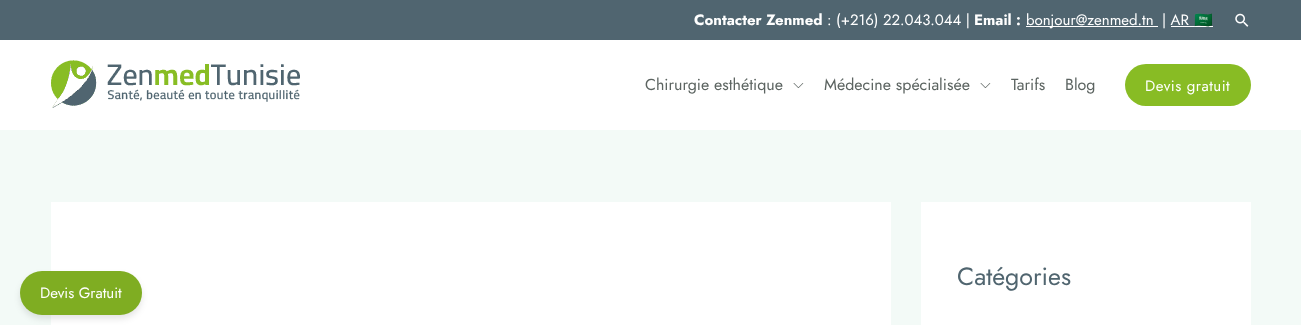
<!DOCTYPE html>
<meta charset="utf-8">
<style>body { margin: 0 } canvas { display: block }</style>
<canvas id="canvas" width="1301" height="325"></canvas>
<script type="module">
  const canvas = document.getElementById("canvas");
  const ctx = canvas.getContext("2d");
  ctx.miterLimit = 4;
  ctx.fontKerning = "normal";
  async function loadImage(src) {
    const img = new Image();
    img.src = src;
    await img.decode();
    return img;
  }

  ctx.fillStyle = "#f3faf7";
  ctx.fillRect(0, 0, 1301, 325);
  ctx.fillStyle = "#506570";
  ctx.fillRect(0, 0, 1301, 40);
  ctx.font = "bold 15px Jost";
  ctx.fillStyle = "#ffffff";
  ctx.fillText("Contacter Zenmed", 694, 25);
  ctx.font = "15px Jost";
  ctx.fillText(": (+216) 22.043.044 |", 827, 25);
  ctx.font = "bold 15px Jost";
  ctx.fillText("Email :", 974, 25);
  ctx.fillRect(1026, 26, 132, 1);
  ctx.font = "15px Jost";
  ctx.fillText("bonjour@zenmed.tn", 1026, 25);
  ctx.fillText("| AR", 1162, 25);
  ctx.fillRect(1171, 26, 42, 1);
  ctx.font = "15px Noto Color Emoji";
  ctx.fillText("🇸🇦", 1194, 25);
  ctx.drawImage(await loadImage("img1.png"), 1235, 13, 14, 14);
  ctx.fillRect(0, 40, 1301, 90);
  ctx.drawImage(await loadImage("img2.png"), 51, 60, 249, 48);
  ctx.font = "16px Jost";
  ctx.fillStyle = "#5c6461";
  ctx.fillText("Chirurgie esthétique", 645, 90);
  ctx.drawImage(await loadImage("img3.png"), 793, 83, 11, 5);
  ctx.fillText("Médecine spécialisée", 824, 90);
  ctx.drawImage(await loadImage("img3.png"), 980, 83, 11, 5);
  ctx.fillText("Tarifs", 1011, 90);
  ctx.fillText("Blog", 1065, 90);
  ctx.fillStyle = "#88bc24";
  ctx.beginPath();
  ctx.roundRect(1125, 64, 126, 42, 21);
  ctx.fill();
  ctx.letterSpacing = "0.5px";
  ctx.font = "15px Jost";
  ctx.fillStyle = "#ffffff";
  ctx.fillText("Devis gratuit", 1145, 91);
  ctx.fillRect(51, 202, 840, 123);
  ctx.fillRect(921, 202, 330, 123);
  ctx.letterSpacing = "0px";
  ctx.font = "25px Jost";
  ctx.fillStyle = "#50656f";
  ctx.fillText("Catégories", 957, 285);
  ctx.fillStyle = "rgba(0, 0, 0, 0.1)";
  ctx.filter = "blur(3px)";
  ctx.beginPath();
  ctx.roundRect(20, 275, 122, 44, 22);
  ctx.fill();
  ctx.filter = "none";
  ctx.fillStyle = "#7fad22";
  ctx.beginPath();
  ctx.roundRect(20, 271, 122, 44, 22);
  ctx.fill();
  ctx.font = "15px Jost";
  ctx.fillStyle = "#ffffff";
  ctx.fillText("Devis Gratuit", 40, 298);
</script>
